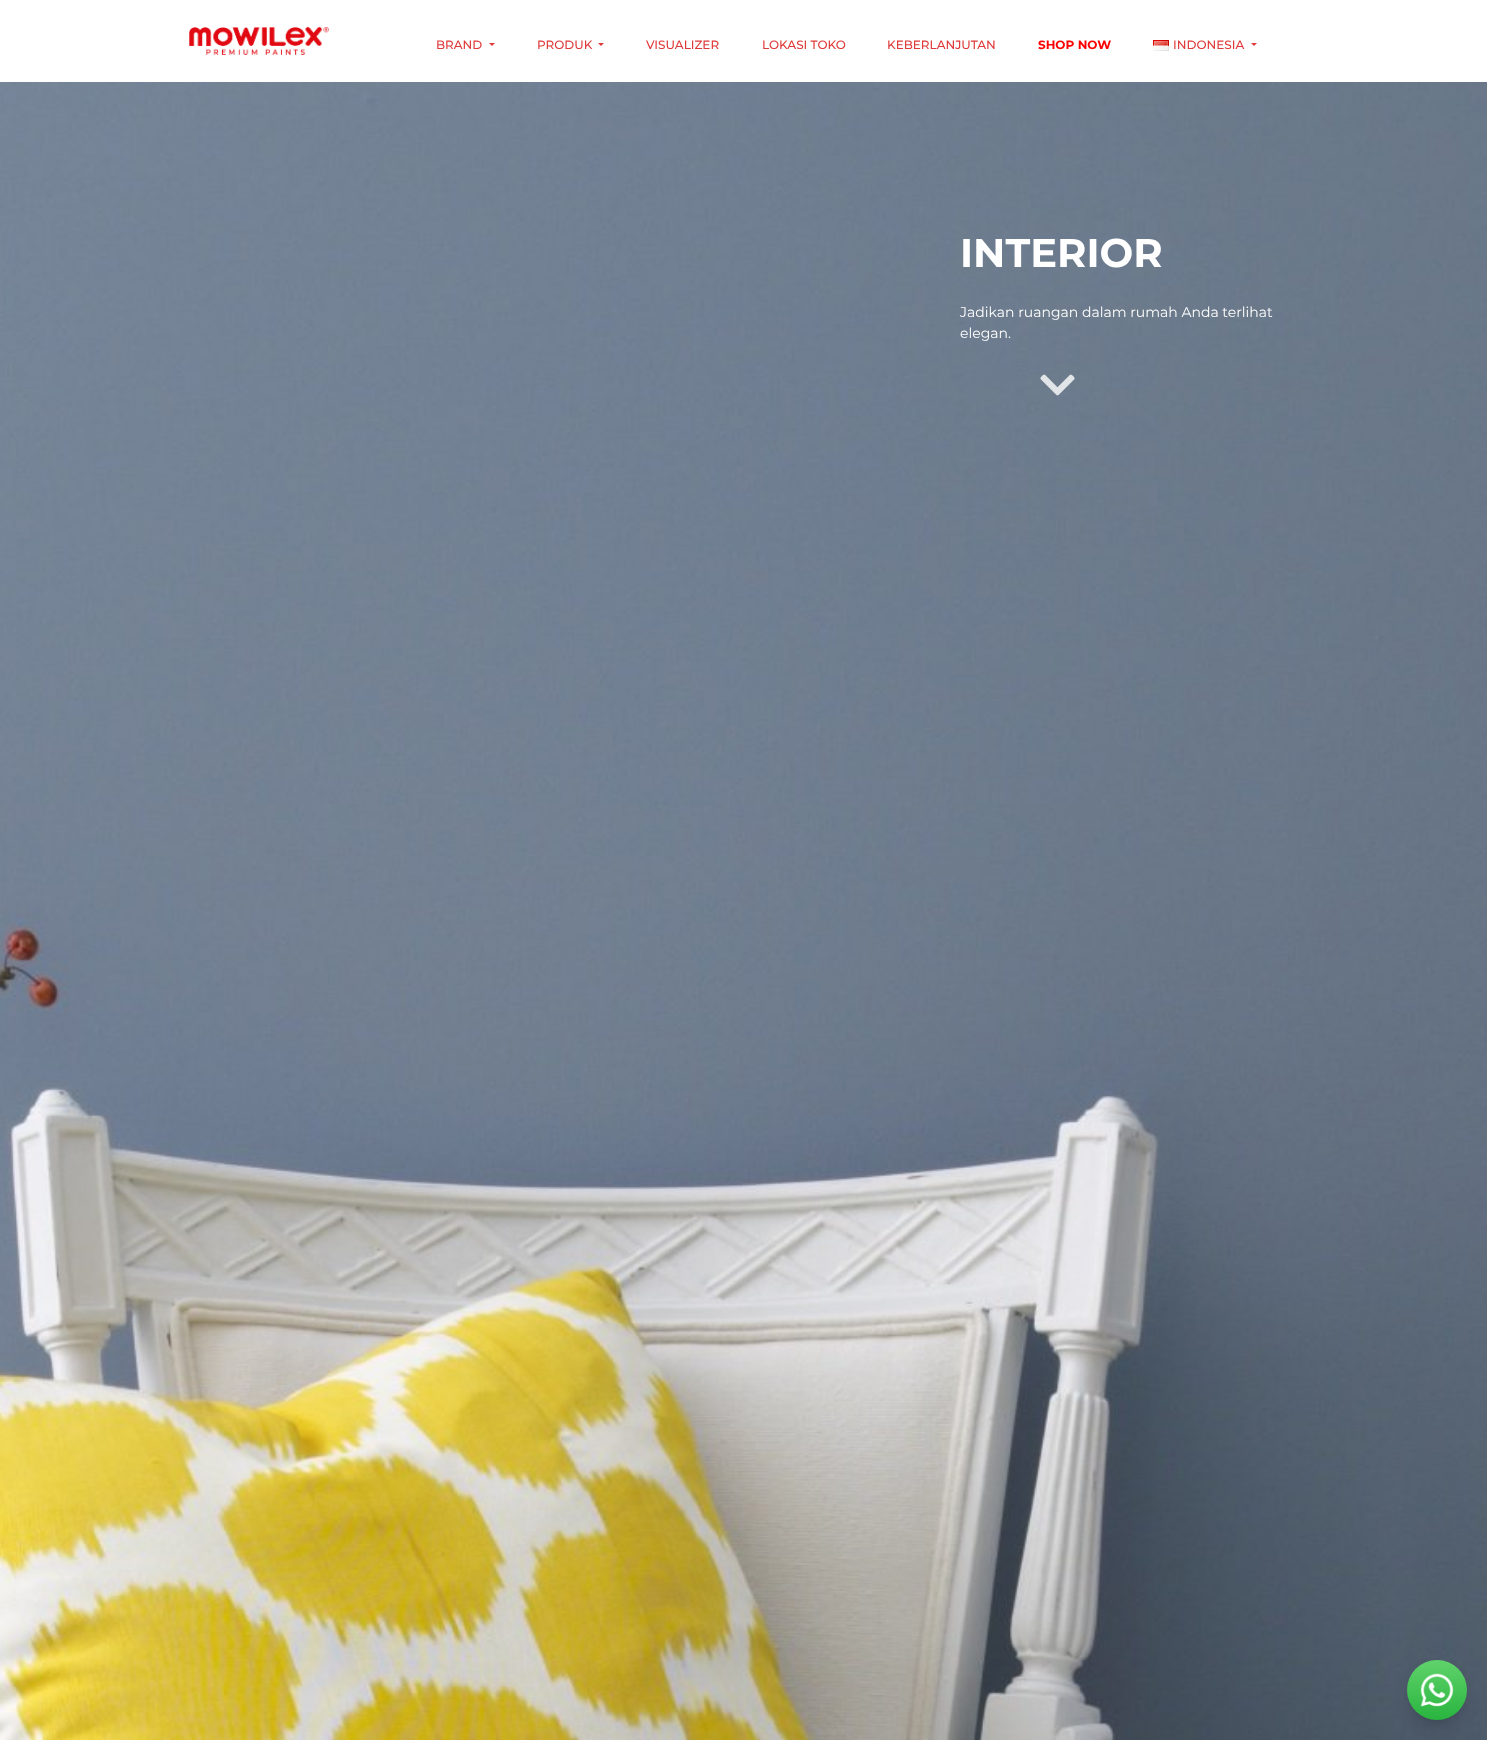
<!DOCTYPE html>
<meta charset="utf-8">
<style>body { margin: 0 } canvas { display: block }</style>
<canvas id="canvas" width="1487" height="1740"></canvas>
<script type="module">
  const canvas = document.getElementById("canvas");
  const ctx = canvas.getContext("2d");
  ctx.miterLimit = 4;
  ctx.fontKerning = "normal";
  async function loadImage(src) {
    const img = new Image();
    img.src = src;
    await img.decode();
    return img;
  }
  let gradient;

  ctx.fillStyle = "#ffffff";
  ctx.fillRect(0, 0, 1487, 1740);
  ctx.drawImage(await loadImage("img1.png"), 189, 27, 140, 28);
  ctx.font = "500 12px Montserrat";
  ctx.fillStyle = "#e03939";
  ctx.fillText("BRAND", 436, 49);
  ctx.beginPath();
  ctx.moveTo(489, 43);
  ctx.lineTo(495, 43);
  ctx.lineTo(492, 46);
  ctx.closePath();
  ctx.fill();
  ctx.fillText("PRODUK", 537, 49);
  ctx.beginPath();
  ctx.moveTo(598, 43);
  ctx.lineTo(604, 43);
  ctx.lineTo(601, 46);
  ctx.closePath();
  ctx.fill();
  ctx.fillText("VISUALIZER", 646, 49);
  ctx.fillText("LOKASI TOKO", 762, 49);
  ctx.fillText("KEBERLANJUTAN", 887, 49);
  ctx.font = "bold 12px Montserrat";
  ctx.fillStyle = "#ff0000";
  ctx.fillText("SHOP NOW", 1038, 49);
  ctx.drawImage(await loadImage("img2.png"), 1153, 40, 16, 11);
  ctx.font = "500 12px Montserrat";
  ctx.fillStyle = "#e03939";
  ctx.fillText("INDONESIA", 1173, 49);
  ctx.beginPath();
  ctx.moveTo(1251, 43);
  ctx.lineTo(1257, 43);
  ctx.lineTo(1254, 46);
  ctx.closePath();
  ctx.fill();
  ctx.drawImage(await loadImage("img3.png"), 0, 82, 1487, 1658);
  ctx.font = "bold 40px Montserrat";
  ctx.fillStyle = "#ffffff";
  ctx.fillText("INTERIOR", 960, 267);
  ctx.font = "14px Montserrat";
  ctx.fillText("Jadikan ruangan dalam rumah Anda terlihat", 960, 317);
  ctx.fillText("elegan.", 960, 338);
  ctx.drawImage(await loadImage("img4.png"), 1040, 374, 35, 22);
  ctx.fillStyle = "rgba(0, 0, 0, 0.35)";
  ctx.filter = "blur(10px)";
  ctx.beginPath();
  ctx.roundRect(1417, 1680, 40, 40, 20);
  ctx.fill();
  ctx.filter = "none";
  gradient = ctx.createLinearGradient(1437, 1720, 1437, 1660);
  gradient.addColorStop(0, "#29b43f");
  gradient.addColorStop(1, "#60d36b");
  ctx.fillStyle = gradient;
  ctx.beginPath();
  ctx.arc(1437, 1690, 30, 0, Math.PI * 2);
  ctx.fill();
  ctx.drawImage(await loadImage("img5.png"), 1420, 1673, 34, 34);
</script>
